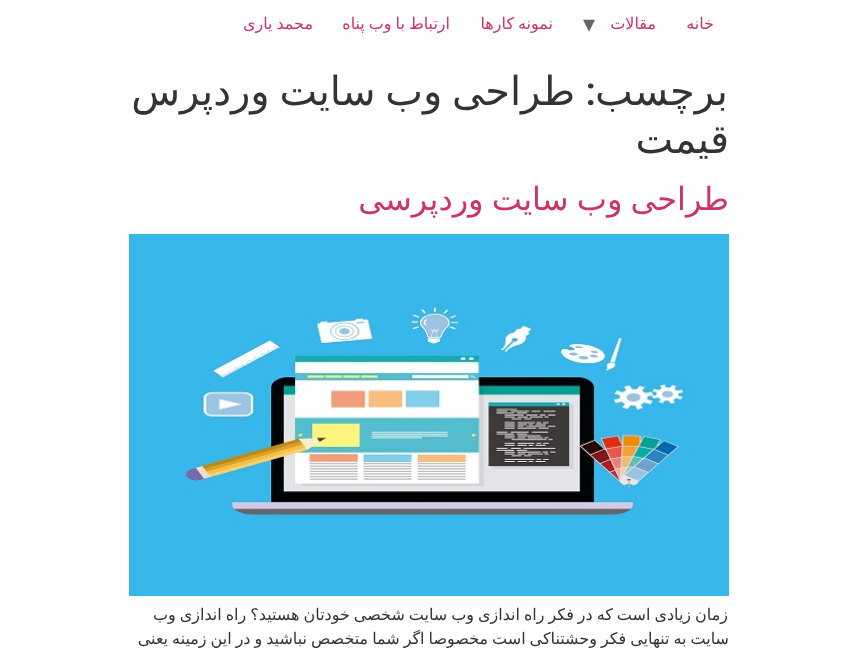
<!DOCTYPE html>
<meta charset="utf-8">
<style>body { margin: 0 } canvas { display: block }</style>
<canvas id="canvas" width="857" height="661"></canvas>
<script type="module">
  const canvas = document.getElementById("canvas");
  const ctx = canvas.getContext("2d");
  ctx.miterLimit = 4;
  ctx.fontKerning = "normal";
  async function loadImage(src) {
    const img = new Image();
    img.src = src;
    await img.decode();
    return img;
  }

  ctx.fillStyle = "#ffffff";
  ctx.fillRect(0, 0, 857, 661);
  ctx.direction = "rtl";
  ctx.font = "16px DejaVu Sans";
  ctx.fillStyle = "#cc3366";
  ctx.fillText("خانه", 714, 29);
  ctx.fillText("مقالات", 656, 29);
  ctx.direction = "ltr";
  ctx.font = "24px DejaVu Sans";
  ctx.fillStyle = "#666666";
  ctx.fillText("▾", 583, 32);
  ctx.wordSpacing = "-1.1px";
  ctx.direction = "rtl";
  ctx.font = "16px DejaVu Sans";
  ctx.fillStyle = "#cc3366";
  ctx.fillText("نمونه کارها", 553, 29);
  ctx.fillText("ارتباط با وب پناه", 450, 29);
  ctx.fillText("محمد یاری", 313, 29);
  ctx.wordSpacing = "0px";
  ctx.font = "40px DejaVu Sans";
  ctx.fillStyle = "#333333";
  ctx.fillText("برچسب", 728, 105);
  ctx.font = "500 40px Roboto";
  ctx.fillText(":", 596, 105);
  ctx.wordSpacing = "-3px";
  ctx.font = "40px DejaVu Sans";
  ctx.fillText("طراحی وب سایت وردپرس", 575, 105);
  ctx.wordSpacing = "0px";
  ctx.fillText("قیمت", 729, 153);
  ctx.wordSpacing = "-2px";
  ctx.font = "32px DejaVu Sans";
  ctx.fillStyle = "#cc3366";
  ctx.fillText("طراحی وب سایت وردپرسی", 729, 210);
  ctx.drawImage(await loadImage("img1.png"), 129, 234, 600, 362);
  ctx.wordSpacing = "-1.1px";
  ctx.font = "16px DejaVu Sans";
  ctx.fillStyle = "#333333";
  ctx.fillText("زمان زیادی است که در فکر راه اندازی وب سایت شخصی خودتان هستید؟ راه اندازی وب", 728, 620);
  ctx.fillText("سایت به تنهایی فکر وحشتناکی است مخصوصا اگر شما متخصص نباشید و در این زمینه یعنی", 729, 644);
</script>
